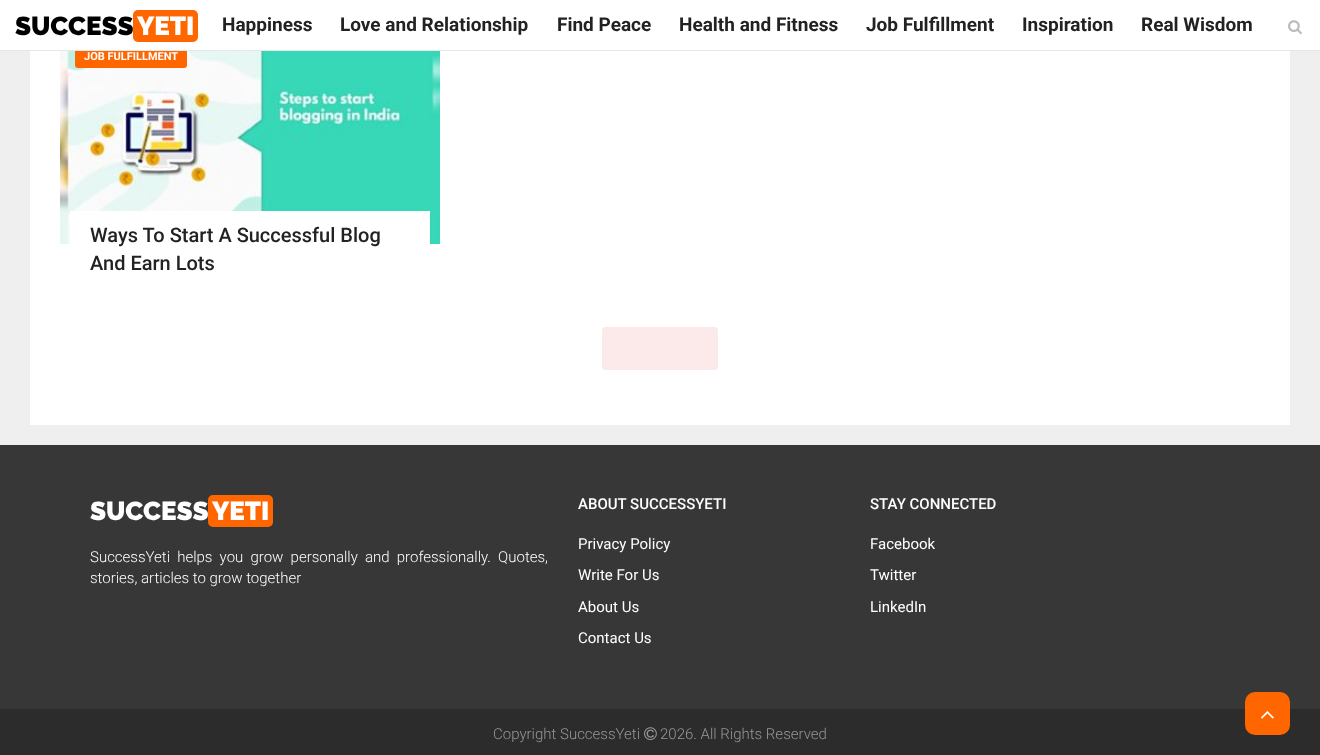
<!DOCTYPE html>
<meta charset="utf-8">
<style>body { margin: 0 } canvas { display: block }</style>
<canvas id="canvas" width="1320" height="755"></canvas>
<script type="module">
  const canvas = document.getElementById("canvas");
  const ctx = canvas.getContext("2d");
  ctx.miterLimit = 4;
  ctx.fontKerning = "normal";
  async function loadImage(src) {
    const img = new Image();
    img.src = src;
    await img.decode();
    return img;
  }

  ctx.fillStyle = "#efefef";
  ctx.fillRect(0, 0, 1320, 755);
  ctx.fillStyle = "#ffffff";
  ctx.fillRect(30, 51, 1260, 374);
  ctx.drawImage(await loadImage("img2.png"), 60, 51, 380, 193);
  ctx.fillStyle = "#ff6600";
  ctx.beginPath();
  ctx.roundRect(75, 45, 112, 23, 3);
  ctx.fill();
  ctx.fillStyle = "#ffffff";
  ctx.fillRect(0, 0, 1320, 50);
  ctx.fillStyle = "#e7e7e7";
  ctx.fillRect(0, 50, 1320, 1);
  ctx.font = "900 26px Raleway";
  ctx.fillStyle = "#000000";
  ctx.fillText("SUCCESS", 15, 35);
  ctx.fillStyle = "#ff6600";
  ctx.beginPath();
  ctx.roundRect(133, 10, 65, 32, 5);
  ctx.fill();
  ctx.fillStyle = "#ffffff";
  ctx.fillText("YETI", 137, 35);
  ctx.font = "bold 19px Roboto";
  ctx.fillStyle = "#222222";
  ctx.fillText("Happiness", 222, 31);
  ctx.fillText("Love and Relationship", 340, 31);
  ctx.fillText("Find Peace", 557, 31);
  ctx.fillText("Health and Fitness", 679, 31);
  ctx.fillText("Job Fulfillment", 866, 31);
  ctx.fillText("Inspiration", 1022, 31);
  ctx.fillText("Real Wisdom", 1141, 31);
  ctx.drawImage(await loadImage("img1.png"), 1288, 20, 14, 15);
  ctx.font = "bold 11px Roboto";
  ctx.fillStyle = "#ffffff";
  ctx.fillText("JOB FULFILLMENT", 84, 60);
  ctx.fillRect(70, 211, 360, 33);
  ctx.font = "500 20px Roboto";
  ctx.fillStyle = "#222222";
  ctx.fillText("Ways To Start A Successful Blog", 90, 242);
  ctx.fillText("And Earn Lots", 90, 270);
  ctx.fillStyle = "#fceaea";
  ctx.beginPath();
  ctx.roundRect(602, 327, 116, 43, 4);
  ctx.fill();
  ctx.fillStyle = "#373737";
  ctx.fillRect(0, 445, 1320, 264);
  ctx.font = "900 26px Raleway";
  ctx.fillStyle = "#ffffff";
  ctx.fillText("SUCCESS", 90, 520);
  ctx.fillStyle = "#ff6600";
  ctx.beginPath();
  ctx.roundRect(208, 495, 65, 32, 5);
  ctx.fill();
  ctx.fillStyle = "#ffffff";
  ctx.fillText("YETI", 212, 520);
  ctx.wordSpacing = "3.5px";
  ctx.font = "300 15px Roboto";
  ctx.fillText("SuccessYeti helps you grow personally and professionally. Quotes,", 90, 562);
  ctx.wordSpacing = "0px";
  ctx.fillText("stories, articles to grow together", 90, 583);
  ctx.font = "500 15px Roboto";
  ctx.fillText("ABOUT SUCCESSYETI", 578, 509);
  ctx.font = "15px Roboto";
  ctx.fillText("Privacy Policy", 578, 549);
  ctx.fillText("Write For Us", 578, 580);
  ctx.fillText("About Us", 578, 612);
  ctx.fillText("Contact Us", 578, 643);
  ctx.font = "500 15px Roboto";
  ctx.fillText("STAY CONNECTED", 870, 509);
  ctx.font = "15px Roboto";
  ctx.fillText("Facebook", 870, 549);
  ctx.fillText("Twitter", 870, 580);
  ctx.fillText("LinkedIn", 870, 612);
  ctx.fillStyle = "#2c2c2c";
  ctx.fillRect(0, 709, 1320, 46);
  ctx.font = "300 15px Roboto";
  ctx.fillStyle = "#969696";
  ctx.fillText("Copyright SuccessYeti", 493, 739);
  ctx.drawImage(await loadImage("img3.png"), 644, 727, 13, 14);
  ctx.fillText("2026. All Rights Reserved", 660, 739);
  ctx.fillStyle = "#ff6600";
  ctx.beginPath();
  ctx.roundRect(1245, 692, 45, 43, 10);
  ctx.fill();
  ctx.drawImage(await loadImage("img4.png"), 1261, 711, 13, 8);
</script>
